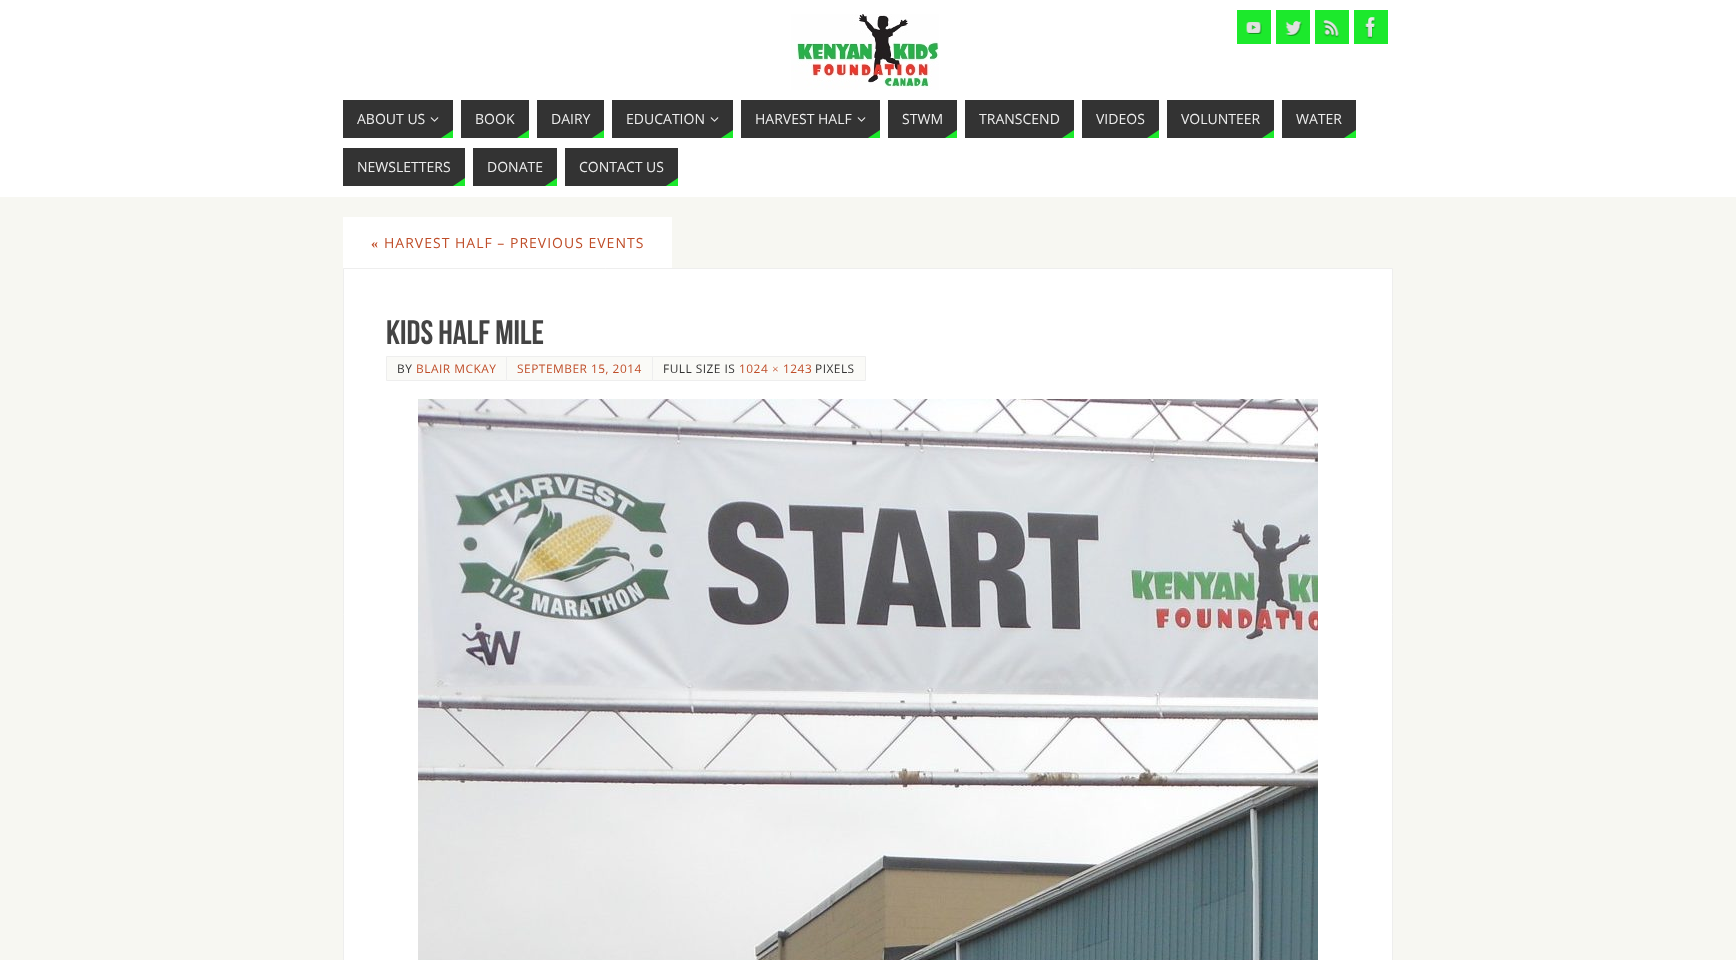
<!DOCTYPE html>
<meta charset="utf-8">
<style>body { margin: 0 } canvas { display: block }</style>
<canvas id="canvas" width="1736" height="960"></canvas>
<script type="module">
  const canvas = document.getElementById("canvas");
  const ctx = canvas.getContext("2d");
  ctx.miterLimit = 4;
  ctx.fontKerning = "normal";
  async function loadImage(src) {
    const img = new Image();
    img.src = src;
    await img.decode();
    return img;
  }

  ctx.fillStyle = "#f7f7f2";
  ctx.fillRect(0, 0, 1736, 960);
  ctx.fillStyle = "#ffffff";
  ctx.fillRect(0, 0, 1736, 197);
  ctx.drawImage(await loadImage("img1.png"), 791, 14, 148, 76);
  ctx.fillStyle = "#1ce92c";
  ctx.fillRect(1237, 10, 34, 34);
  ctx.drawImage(await loadImage("img2.png"), 1246, 22, 16, 12);
  ctx.fillRect(1276, 10, 34, 34);
  ctx.drawImage(await loadImage("img3.png"), 1285, 21, 18, 15);
  ctx.fillRect(1315, 10, 34, 34);
  ctx.drawImage(await loadImage("img4.png"), 1323, 20, 16, 18);
  ctx.fillRect(1354, 10, 34, 34);
  ctx.drawImage(await loadImage("img5.png"), 1365, 17, 11, 22);
  ctx.fillStyle = "#333333";
  ctx.fillRect(343, 100, 110, 38);
  ctx.font = "14px Open Sans";
  ctx.fillStyle = "#eeeeee";
  ctx.fillText("ABOUT US", 357, 124);
  ctx.drawImage(await loadImage("img6.png"), 430, 117, 9, 5);
  ctx.fillStyle = "#1ce92c";
  ctx.beginPath();
  ctx.moveTo(453, 138);
  ctx.lineTo(441, 138);
  ctx.lineTo(453, 130);
  ctx.closePath();
  ctx.fill();
  ctx.fillStyle = "#333333";
  ctx.fillRect(461, 100, 68, 38);
  ctx.fillStyle = "#eeeeee";
  ctx.fillText("BOOK", 475, 124);
  ctx.fillStyle = "#1ce92c";
  ctx.beginPath();
  ctx.moveTo(529, 138);
  ctx.lineTo(517, 138);
  ctx.lineTo(529, 130);
  ctx.closePath();
  ctx.fill();
  ctx.fillStyle = "#333333";
  ctx.fillRect(537, 100, 67, 38);
  ctx.fillStyle = "#eeeeee";
  ctx.fillText("DAIRY", 551, 124);
  ctx.fillStyle = "#1ce92c";
  ctx.beginPath();
  ctx.moveTo(604, 138);
  ctx.lineTo(592, 138);
  ctx.lineTo(604, 130);
  ctx.closePath();
  ctx.fill();
  ctx.fillStyle = "#333333";
  ctx.fillRect(612, 100, 121, 38);
  ctx.fillStyle = "#eeeeee";
  ctx.fillText("EDUCATION", 626, 124);
  ctx.drawImage(await loadImage("img6.png"), 710, 117, 9, 5);
  ctx.fillStyle = "#1ce92c";
  ctx.beginPath();
  ctx.moveTo(733, 138);
  ctx.lineTo(721, 138);
  ctx.lineTo(733, 130);
  ctx.closePath();
  ctx.fill();
  ctx.fillStyle = "#333333";
  ctx.fillRect(741, 100, 139, 38);
  ctx.fillStyle = "#eeeeee";
  ctx.fillText("HARVEST HALF", 755, 124);
  ctx.drawImage(await loadImage("img6.png"), 857, 117, 9, 5);
  ctx.fillStyle = "#1ce92c";
  ctx.beginPath();
  ctx.moveTo(880, 138);
  ctx.lineTo(868, 138);
  ctx.lineTo(880, 130);
  ctx.closePath();
  ctx.fill();
  ctx.fillStyle = "#333333";
  ctx.fillRect(888, 100, 69, 38);
  ctx.fillStyle = "#eeeeee";
  ctx.fillText("STWM", 902, 124);
  ctx.fillStyle = "#1ce92c";
  ctx.beginPath();
  ctx.moveTo(957, 138);
  ctx.lineTo(945, 138);
  ctx.lineTo(957, 130);
  ctx.closePath();
  ctx.fill();
  ctx.fillStyle = "#333333";
  ctx.fillRect(965, 100, 109, 38);
  ctx.fillStyle = "#eeeeee";
  ctx.fillText("TRANSCEND", 979, 124);
  ctx.fillStyle = "#1ce92c";
  ctx.beginPath();
  ctx.moveTo(1074, 138);
  ctx.lineTo(1062, 138);
  ctx.lineTo(1074, 130);
  ctx.closePath();
  ctx.fill();
  ctx.fillStyle = "#333333";
  ctx.fillRect(1082, 100, 77, 38);
  ctx.fillStyle = "#eeeeee";
  ctx.fillText("VIDEOS", 1096, 124);
  ctx.fillStyle = "#1ce92c";
  ctx.beginPath();
  ctx.moveTo(1159, 138);
  ctx.lineTo(1147, 138);
  ctx.lineTo(1159, 130);
  ctx.closePath();
  ctx.fill();
  ctx.fillStyle = "#333333";
  ctx.fillRect(1167, 100, 107, 38);
  ctx.fillStyle = "#eeeeee";
  ctx.fillText("VOLUNTEER", 1181, 124);
  ctx.fillStyle = "#1ce92c";
  ctx.beginPath();
  ctx.moveTo(1274, 138);
  ctx.lineTo(1262, 138);
  ctx.lineTo(1274, 130);
  ctx.closePath();
  ctx.fill();
  ctx.fillStyle = "#333333";
  ctx.fillRect(1282, 100, 74, 38);
  ctx.fillStyle = "#eeeeee";
  ctx.fillText("WATER", 1296, 124);
  ctx.fillStyle = "#1ce92c";
  ctx.beginPath();
  ctx.moveTo(1356, 138);
  ctx.lineTo(1344, 138);
  ctx.lineTo(1356, 130);
  ctx.closePath();
  ctx.fill();
  ctx.fillStyle = "#333333";
  ctx.fillRect(343, 148, 122, 38);
  ctx.fillStyle = "#eeeeee";
  ctx.fillText("NEWSLETTERS", 357, 172);
  ctx.fillStyle = "#1ce92c";
  ctx.beginPath();
  ctx.moveTo(465, 186);
  ctx.lineTo(453, 186);
  ctx.lineTo(465, 178);
  ctx.closePath();
  ctx.fill();
  ctx.fillStyle = "#333333";
  ctx.fillRect(473, 148, 84, 38);
  ctx.fillStyle = "#eeeeee";
  ctx.fillText("DONATE", 487, 172);
  ctx.fillStyle = "#1ce92c";
  ctx.beginPath();
  ctx.moveTo(557, 186);
  ctx.lineTo(545, 186);
  ctx.lineTo(557, 178);
  ctx.closePath();
  ctx.fill();
  ctx.fillStyle = "#333333";
  ctx.fillRect(565, 148, 113, 38);
  ctx.fillStyle = "#eeeeee";
  ctx.fillText("CONTACT US", 579, 172);
  ctx.fillStyle = "#1ce92c";
  ctx.beginPath();
  ctx.moveTo(678, 186);
  ctx.lineTo(666, 186);
  ctx.lineTo(678, 178);
  ctx.closePath();
  ctx.fill();
  ctx.fillStyle = "#ffffff";
  ctx.fillRect(343, 217, 329, 51);
  ctx.letterSpacing = "1px";
  ctx.font = "bold 14px Liberation Serif";
  ctx.fillStyle = "#bf4d28";
  ctx.fillText("«", 371, 248);
  ctx.font = "14px Open Sans";
  ctx.fillText("HARVEST HALF – PREVIOUS EVENTS", 384, 248);
  ctx.fillStyle = "#ffffff";
  ctx.beginPath();
  ctx.rect(343.5, 268.5, 1049, 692);
  ctx.fill();
  ctx.strokeStyle = "#eeeeee";
  ctx.stroke();
  ctx.letterSpacing = "0px";
  ctx.font = "34px Bebas Neue";
  ctx.fillStyle = "#444444";
  ctx.fillText("Kids Half Mile", 386, 344);
  ctx.fillStyle = "#fafaf7";
  ctx.beginPath();
  ctx.rect(386.5, 356.5, 120, 24);
  ctx.fill();
  ctx.stroke();
  ctx.letterSpacing = "0.5px";
  ctx.font = "11.9px Open Sans";
  ctx.fillStyle = "#333333";
  ctx.fillText("BY", 397, 373);
  ctx.fillStyle = "#bf4d28";
  ctx.fillText("BLAIR MCKAY", 416, 373);
  ctx.fillStyle = "#fafaf7";
  ctx.beginPath();
  ctx.rect(506.5, 356.5, 146, 24);
  ctx.fill();
  ctx.stroke();
  ctx.fillStyle = "#bf4d28";
  ctx.fillText("SEPTEMBER 15, 2014", 517, 373);
  ctx.fillStyle = "#fafaf7";
  ctx.beginPath();
  ctx.rect(652.5, 356.5, 213, 24);
  ctx.fill();
  ctx.stroke();
  ctx.fillStyle = "#333333";
  ctx.fillText("FULL SIZE IS", 663, 373);
  ctx.fillStyle = "#bf4d28";
  ctx.fillText("1024", 739, 373);
  ctx.font = "11.9px Liberation Serif";
  ctx.fillText("×", 772, 373);
  ctx.font = "11.9px Open Sans";
  ctx.fillText("1243", 783, 373);
  ctx.fillStyle = "#333333";
  ctx.fillText("PIXELS", 815, 373);
  ctx.drawImage(await loadImage("img7.png"), 418, 399, 900, 561);
</script>
